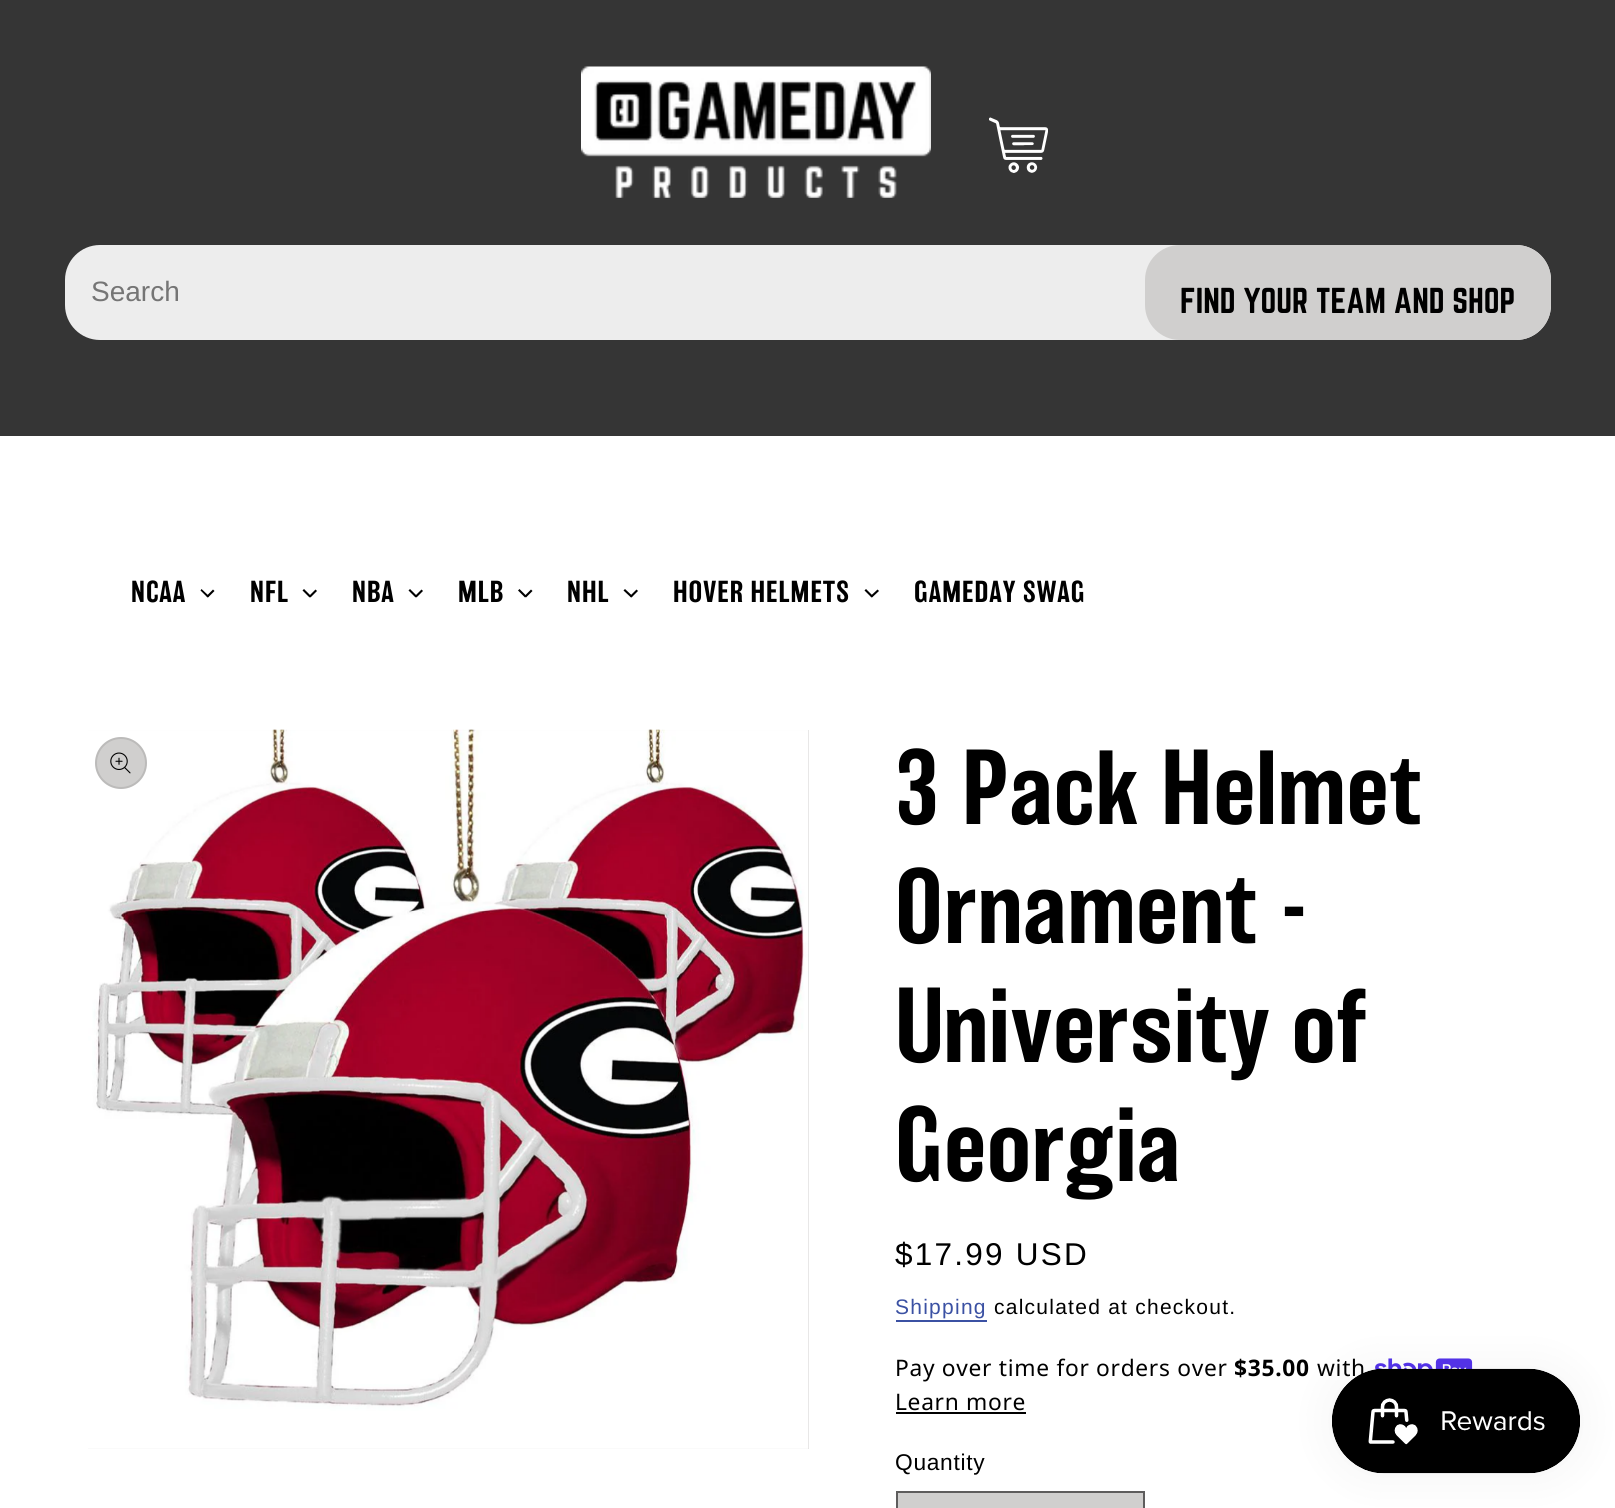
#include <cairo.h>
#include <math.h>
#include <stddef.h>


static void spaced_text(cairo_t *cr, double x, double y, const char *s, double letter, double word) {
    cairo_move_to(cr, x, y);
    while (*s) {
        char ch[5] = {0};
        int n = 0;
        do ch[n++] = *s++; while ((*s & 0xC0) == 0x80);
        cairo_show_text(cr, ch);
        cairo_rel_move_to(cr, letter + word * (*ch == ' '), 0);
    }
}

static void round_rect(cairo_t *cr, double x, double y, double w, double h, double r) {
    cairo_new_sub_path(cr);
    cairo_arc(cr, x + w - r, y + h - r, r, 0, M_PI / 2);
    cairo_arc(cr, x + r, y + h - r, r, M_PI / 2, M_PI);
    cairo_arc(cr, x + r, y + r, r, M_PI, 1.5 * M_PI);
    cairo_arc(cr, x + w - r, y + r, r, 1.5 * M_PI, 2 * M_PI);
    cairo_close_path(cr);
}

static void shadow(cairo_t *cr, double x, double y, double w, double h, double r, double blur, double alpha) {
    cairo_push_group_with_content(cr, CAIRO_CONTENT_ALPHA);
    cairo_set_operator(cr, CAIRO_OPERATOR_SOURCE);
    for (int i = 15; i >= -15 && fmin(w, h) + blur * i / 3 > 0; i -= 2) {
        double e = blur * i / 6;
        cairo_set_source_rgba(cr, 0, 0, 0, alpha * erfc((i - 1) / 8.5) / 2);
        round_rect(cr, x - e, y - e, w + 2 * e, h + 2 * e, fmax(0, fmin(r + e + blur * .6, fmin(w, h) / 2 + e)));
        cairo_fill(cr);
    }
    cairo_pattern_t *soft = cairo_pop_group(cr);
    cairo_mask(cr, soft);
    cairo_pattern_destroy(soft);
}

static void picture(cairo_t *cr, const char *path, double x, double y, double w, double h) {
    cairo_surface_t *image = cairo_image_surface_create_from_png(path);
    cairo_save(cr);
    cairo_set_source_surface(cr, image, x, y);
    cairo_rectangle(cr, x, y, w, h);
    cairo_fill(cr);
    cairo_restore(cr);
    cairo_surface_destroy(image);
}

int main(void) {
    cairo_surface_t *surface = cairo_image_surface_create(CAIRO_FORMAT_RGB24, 1615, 1508);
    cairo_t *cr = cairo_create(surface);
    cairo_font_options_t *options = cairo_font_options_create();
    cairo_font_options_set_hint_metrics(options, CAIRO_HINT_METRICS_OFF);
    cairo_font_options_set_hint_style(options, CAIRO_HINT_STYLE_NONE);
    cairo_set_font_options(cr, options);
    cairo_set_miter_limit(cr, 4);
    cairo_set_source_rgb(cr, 1, 1, 1);
    cairo_paint(cr);
    cairo_set_source_rgb(cr, 0.208, 0.208, 0.208);
    cairo_rectangle(cr, 0, 0, 1615, 436);
    cairo_fill(cr);
    picture(cr, "img1.png", 581, 66, 350, 132);
    picture(cr, "img2.png", 989, 117, 59, 56);
    cairo_set_source_rgb(cr, 0.929, 0.929, 0.929);
    round_rect(cr, 65, 245, 1486, 95, 35);
    cairo_fill(cr);
    cairo_select_font_face(cr, "Liberation Sans", CAIRO_FONT_SLANT_NORMAL, CAIRO_FONT_WEIGHT_NORMAL);
    cairo_set_font_size(cr, 28);
    cairo_set_source_rgb(cr, 0.459, 0.459, 0.459);
    cairo_move_to(cr, 91, 301);
    cairo_show_text(cr, "Search");
    cairo_set_source_rgb(cr, 0.816, 0.812, 0.808);
    round_rect(cr, 1145, 245, 406, 95, 35);
    cairo_fill(cr);
    cairo_select_font_face(cr, "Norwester", CAIRO_FONT_SLANT_NORMAL, CAIRO_FONT_WEIGHT_NORMAL);
    cairo_set_font_size(cr, 31.5);
    cairo_set_source_rgb(cr, 0, 0, 0);
    cairo_move_to(cr, 1180, 313);
    cairo_show_text(cr, "FIND YOUR TEAM AND SHOP");
    cairo_select_font_face(cr, "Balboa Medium", CAIRO_FONT_SLANT_NORMAL, CAIRO_FONT_WEIGHT_NORMAL);
    cairo_set_font_size(cr, 28);
    spaced_text(cr, 131, 602, "NCAA", 1, 0);
    cairo_new_path(cr);
    cairo_move_to(cr, 213, 589.5);
    cairo_line_to(cr, 214.5, 591);
    cairo_line_to(cr, 208, 597.5);
    cairo_line_to(cr, 206.5, 596);
    cairo_close_path(cr);
    cairo_fill(cr);
    cairo_new_path(cr);
    cairo_move_to(cr, 201.5, 589);
    cairo_line_to(cr, 209, 596);
    cairo_line_to(cr, 207.5, 597.5);
    cairo_line_to(cr, 200.5, 590.5);
    cairo_close_path(cr);
    cairo_fill(cr);
    spaced_text(cr, 250, 602, "NFL", 1, 0);
    cairo_new_path(cr);
    cairo_move_to(cr, 315.5, 589.5);
    cairo_line_to(cr, 317, 591);
    cairo_line_to(cr, 310.5, 597.5);
    cairo_line_to(cr, 309, 596);
    cairo_close_path(cr);
    cairo_fill(cr);
    cairo_new_path(cr);
    cairo_move_to(cr, 304, 589);
    cairo_line_to(cr, 311, 596);
    cairo_line_to(cr, 309.5, 597.5);
    cairo_line_to(cr, 302.5, 590.5);
    cairo_close_path(cr);
    cairo_fill(cr);
    spaced_text(cr, 352, 602, "NBA", 1, 0);
    cairo_new_path(cr);
    cairo_move_to(cr, 421.5, 589.5);
    cairo_line_to(cr, 423, 591);
    cairo_line_to(cr, 416.5, 597.5);
    cairo_line_to(cr, 415, 596);
    cairo_close_path(cr);
    cairo_fill(cr);
    cairo_new_path(cr);
    cairo_move_to(cr, 410, 589);
    cairo_line_to(cr, 417, 596);
    cairo_line_to(cr, 415.5, 597.5);
    cairo_line_to(cr, 408.5, 590.5);
    cairo_close_path(cr);
    cairo_fill(cr);
    spaced_text(cr, 458, 602, "MLB", 1, 0);
    cairo_new_path(cr);
    cairo_move_to(cr, 531, 589.5);
    cairo_line_to(cr, 532.5, 591);
    cairo_line_to(cr, 526, 597.5);
    cairo_line_to(cr, 524.5, 596);
    cairo_close_path(cr);
    cairo_fill(cr);
    cairo_new_path(cr);
    cairo_move_to(cr, 519.5, 589);
    cairo_line_to(cr, 526.5, 596);
    cairo_line_to(cr, 525, 597.5);
    cairo_line_to(cr, 518, 590.5);
    cairo_close_path(cr);
    cairo_fill(cr);
    spaced_text(cr, 567, 602, "NHL", 1, 0);
    cairo_new_path(cr);
    cairo_move_to(cr, 636.5, 589.5);
    cairo_line_to(cr, 638, 591);
    cairo_line_to(cr, 631.5, 597.5);
    cairo_line_to(cr, 630, 596);
    cairo_close_path(cr);
    cairo_fill(cr);
    cairo_new_path(cr);
    cairo_move_to(cr, 625, 589);
    cairo_line_to(cr, 632.5, 596);
    cairo_line_to(cr, 631, 597.5);
    cairo_line_to(cr, 623.5, 590.5);
    cairo_close_path(cr);
    cairo_fill(cr);
    spaced_text(cr, 673, 602, "HOVER HELMETS", 1, 0);
    cairo_new_path(cr);
    cairo_move_to(cr, 877.5, 589.5);
    cairo_line_to(cr, 879, 591);
    cairo_line_to(cr, 872, 597.5);
    cairo_line_to(cr, 870.5, 596);
    cairo_close_path(cr);
    cairo_fill(cr);
    cairo_new_path(cr);
    cairo_move_to(cr, 866, 589);
    cairo_line_to(cr, 873, 596);
    cairo_line_to(cr, 871.5, 597.5);
    cairo_line_to(cr, 864.5, 590.5);
    cairo_close_path(cr);
    cairo_fill(cr);
    spaced_text(cr, 914, 602, "GAMEDAY SWAG", 1, 0);
    cairo_set_source_rgb(cr, 0.816, 0.812, 0.808);
    cairo_rectangle(cr, 88, 730, 721, 719);
    cairo_fill(cr);
    picture(cr, "img3.png", 88, 729, 721, 720);
    cairo_arc(cr, 121, 763, 26, 0, 2 * M_PI);
    cairo_fill(cr);
    cairo_arc(cr, 121, 763, 25, 0, 2 * M_PI);
    cairo_set_source_rgba(cr, 0, 0, 0, 0.1);
    cairo_stroke(cr);
    picture(cr, "img4.png", 110, 752, 21, 22);
    cairo_set_font_size(cr, 98);
    cairo_set_source_rgb(cr, 0, 0, 0);
    spaced_text(cr, 895, 824, "3 Pack Helmet", 1.5, 0);
    spaced_text(cr, 895, 943, "Ornament -", 1.5, 0);
    spaced_text(cr, 895, 1062, "University of", 1.5, 0);
    spaced_text(cr, 895, 1181, "Georgia", 1.5, 0);
    cairo_select_font_face(cr, "Liberation Sans", CAIRO_FONT_SLANT_NORMAL, CAIRO_FONT_WEIGHT_NORMAL);
    cairo_set_font_size(cr, 31.5);
    spaced_text(cr, 895, 1265, "$17.99 USD", 2.25, 0);
    cairo_set_font_size(cr, 21);
    cairo_set_source_rgb(cr, 0.231, 0.318, 0.639);
    spaced_text(cr, 895, 1314, "Shipping", 1.25, 0);
    cairo_rectangle(cr, 896, 1320, 91, 2);
    cairo_fill(cr);
    cairo_set_source_rgb(cr, 0, 0, 0);
    spaced_text(cr, 994, 1314, "calculated at checkout.", 1.25, 0);
    cairo_select_font_face(cr, "Noto Sans", CAIRO_FONT_SLANT_NORMAL, CAIRO_FONT_WEIGHT_NORMAL);
    cairo_set_font_size(cr, 22.75);
    spaced_text(cr, 895, 1376, "Pay over time for orders over", 0.7, 0);
    cairo_select_font_face(cr, "Noto Sans", CAIRO_FONT_SLANT_NORMAL, CAIRO_FONT_WEIGHT_BOLD);
    spaced_text(cr, 1234, 1376, "$35.00", 0.7, 0);
    cairo_select_font_face(cr, "Noto Sans", CAIRO_FONT_SLANT_NORMAL, CAIRO_FONT_WEIGHT_NORMAL);
    spaced_text(cr, 1317, 1376, "with", 0.7, 0);
    picture(cr, "img5.png", 1375, 1358, 98, 12);
    spaced_text(cr, 895, 1410, "Learn more", 0.7, 0);
    cairo_rectangle(cr, 896, 1412, 130, 2);
    cairo_fill(cr);
    cairo_select_font_face(cr, "Liberation Sans", CAIRO_FONT_SLANT_NORMAL, CAIRO_FONT_WEIGHT_NORMAL);
    spaced_text(cr, 895, 1470, "Quantity", 0.7, 0);
    cairo_set_source_rgb(cr, 0.816, 0.812, 0.808);
    cairo_rectangle(cr, 897, 1492, 247, 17);
    cairo_fill_preserve(cr);
    cairo_set_source_rgb(cr, 0.369, 0.365, 0.365);
    cairo_stroke(cr);
    cairo_set_source_rgb(cr, 0, 0, 0);
    shadow(cr, 1332, 1369, 248, 105, 52.5, 22, 0.05);
    picture(cr, "img6.png", 1332, 1368, 248, 106);
    cairo_surface_write_to_png(surface, "page.png");
    cairo_font_options_destroy(options);
    cairo_destroy(cr);
    cairo_surface_destroy(surface);
    return 0;
}
